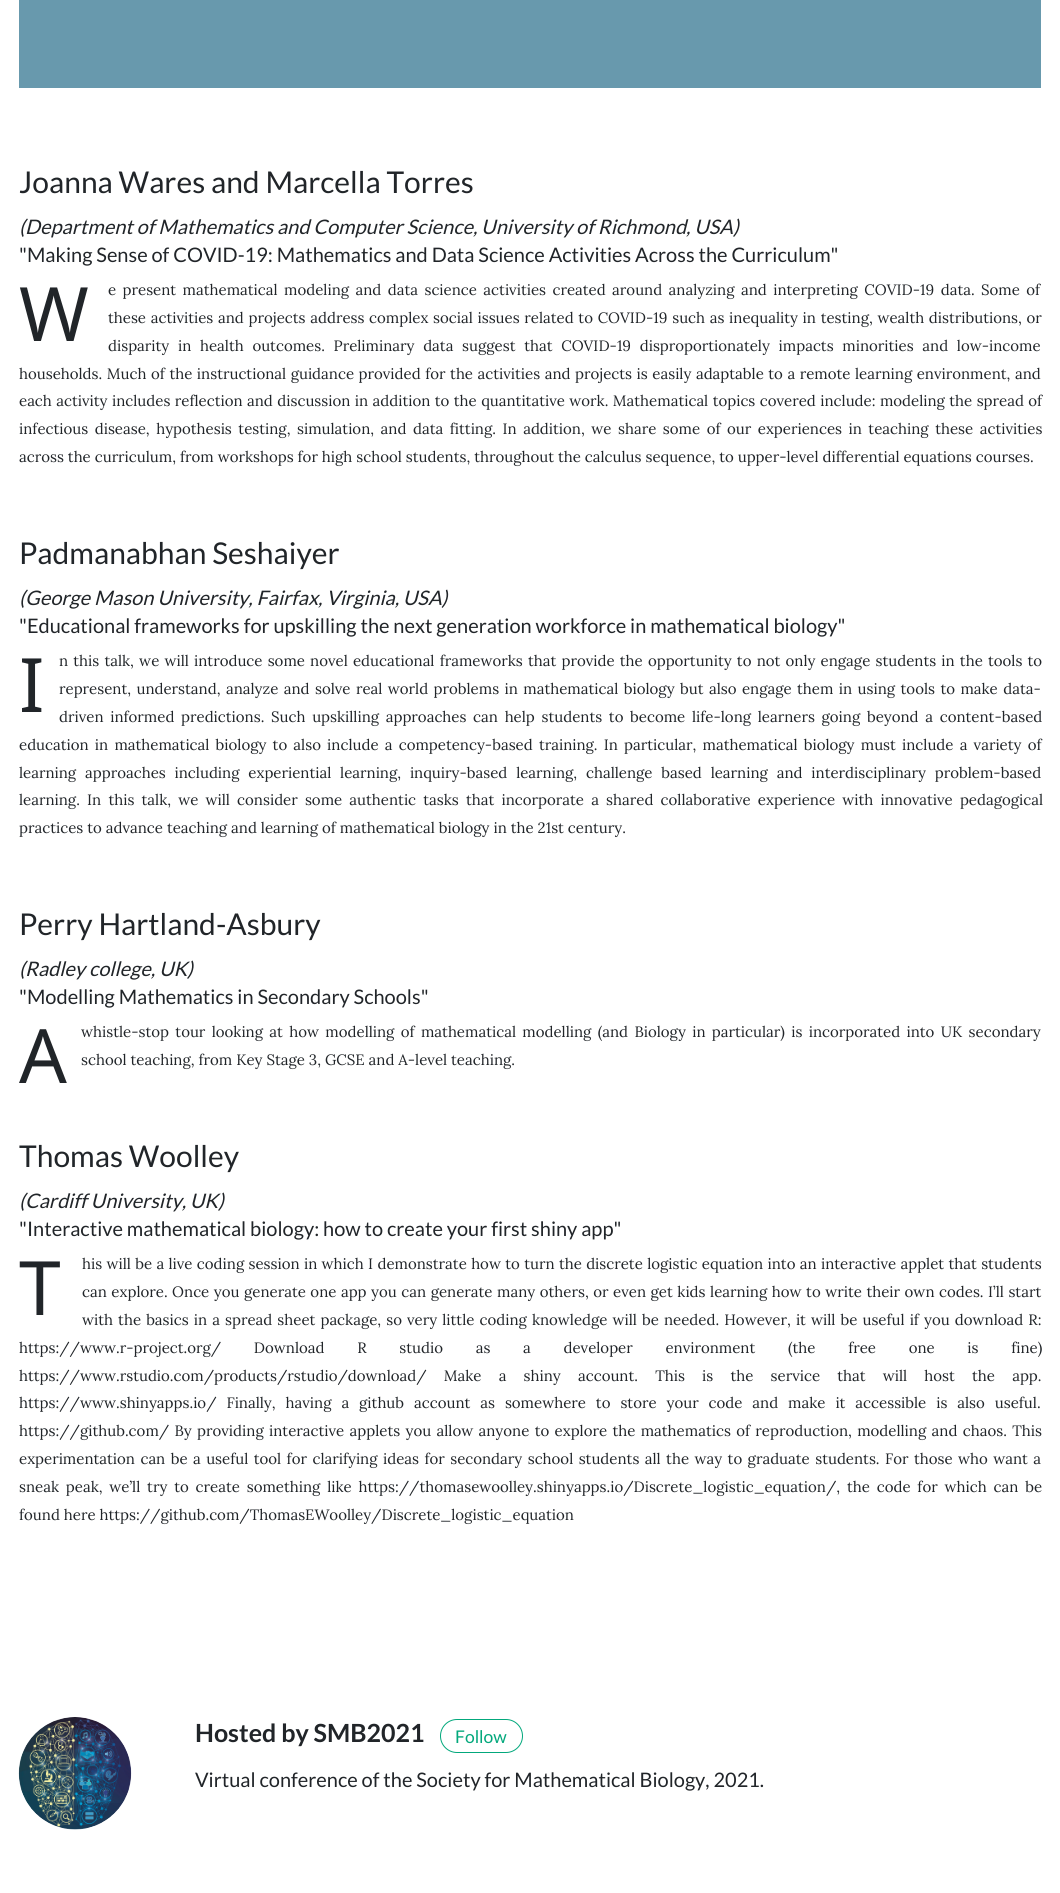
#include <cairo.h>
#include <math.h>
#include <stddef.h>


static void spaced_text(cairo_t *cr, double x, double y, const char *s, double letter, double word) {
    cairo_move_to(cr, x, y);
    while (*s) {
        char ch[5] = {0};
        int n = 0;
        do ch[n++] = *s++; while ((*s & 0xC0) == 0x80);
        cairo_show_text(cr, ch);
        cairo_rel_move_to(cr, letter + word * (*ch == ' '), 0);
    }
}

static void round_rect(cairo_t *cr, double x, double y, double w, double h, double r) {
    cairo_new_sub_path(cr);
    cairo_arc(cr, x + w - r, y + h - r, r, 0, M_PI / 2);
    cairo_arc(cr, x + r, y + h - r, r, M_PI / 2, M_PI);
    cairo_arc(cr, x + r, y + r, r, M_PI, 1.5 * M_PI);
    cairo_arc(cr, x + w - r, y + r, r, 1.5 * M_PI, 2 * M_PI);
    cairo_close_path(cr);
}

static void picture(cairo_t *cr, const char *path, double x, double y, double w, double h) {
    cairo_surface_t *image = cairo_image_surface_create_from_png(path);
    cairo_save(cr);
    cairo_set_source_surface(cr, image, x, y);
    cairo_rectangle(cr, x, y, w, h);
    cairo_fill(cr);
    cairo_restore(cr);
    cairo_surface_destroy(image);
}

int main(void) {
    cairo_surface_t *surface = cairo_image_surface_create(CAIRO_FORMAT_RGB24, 1060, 1893);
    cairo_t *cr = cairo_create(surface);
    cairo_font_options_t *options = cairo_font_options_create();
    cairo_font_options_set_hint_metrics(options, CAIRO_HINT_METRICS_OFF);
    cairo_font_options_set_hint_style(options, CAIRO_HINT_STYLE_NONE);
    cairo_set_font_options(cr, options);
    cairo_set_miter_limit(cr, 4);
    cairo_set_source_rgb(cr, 1, 1, 1);
    cairo_paint(cr);
    cairo_set_source_rgb(cr, 0.408, 0.6, 0.678);
    cairo_rectangle(cr, 19, 0, 1022, 88);
    cairo_fill(cr);
    cairo_select_font_face(cr, "Lato", CAIRO_FONT_SLANT_NORMAL, CAIRO_FONT_WEIGHT_NORMAL);
    cairo_set_font_size(cr, 30);
    cairo_set_source_rgb(cr, 0.129, 0.145, 0.161);
    cairo_move_to(cr, 19, 193);
    cairo_show_text(cr, "Joanna Wares and Marcella Torres");
    cairo_select_font_face(cr, "Lato", CAIRO_FONT_SLANT_ITALIC, CAIRO_FONT_WEIGHT_NORMAL);
    cairo_set_font_size(cr, 20);
    cairo_move_to(cr, 19, 234);
    cairo_show_text(cr, "(Department of Mathematics and Computer Science, University of Richmond, USA)");
    cairo_select_font_face(cr, "Lato", CAIRO_FONT_SLANT_NORMAL, CAIRO_FONT_WEIGHT_NORMAL);
    cairo_move_to(cr, 19, 262);
    cairo_show_text(cr, "\"Making Sense of COVID-19: Mathematics and Data Science Activities Across the Curriculum\"");
    cairo_select_font_face(cr, "Noto Sans", CAIRO_FONT_SLANT_NORMAL, CAIRO_FONT_WEIGHT_NORMAL);
    cairo_set_font_size(cr, 75);
    cairo_move_to(cr, 19, 341);
    cairo_show_text(cr, "W");
    cairo_select_font_face(cr, "Lora", CAIRO_FONT_SLANT_NORMAL, CAIRO_FONT_WEIGHT_NORMAL);
    cairo_set_font_size(cr, 15);
    spaced_text(cr, 108, 295, "e present mathematical modeling and data science activities created around analyzing and interpreting COVID-19 data. Some of", 0, 2.5);
    spaced_text(cr, 108, 323, "these activities and projects address complex social issues related to COVID-19 such as inequality in testing, wealth distributions, or", 0, 0.75);
    spaced_text(cr, 108, 351, "disparity in health outcomes. Preliminary data suggest that COVID-19 disproportionately impacts minorities and low-income", 0, 4.75);
    spaced_text(cr, 19, 379, "households. Much of the instructional guidance provided for the activities and projects is easily adaptable to a remote learning environment, and", 0, 0.6);
    spaced_text(cr, 19, 406, "each activity includes reflection and discussion in addition to the quantitative work. Mathematical topics covered include: modeling the spread of", 0, 0.5);
    spaced_text(cr, 19, 434, "infectious disease, hypothesis testing, simulation, and data fitting. In addition, we share some of our experiences in teaching these activities", 0, 2.6);
    cairo_move_to(cr, 19, 462);
    cairo_show_text(cr, "across the curriculum, from workshops for high school students, throughout the calculus sequence, to upper-level differential equations courses.");
    cairo_select_font_face(cr, "Lato", CAIRO_FONT_SLANT_NORMAL, CAIRO_FONT_WEIGHT_NORMAL);
    cairo_set_font_size(cr, 30);
    cairo_move_to(cr, 19, 564);
    cairo_show_text(cr, "Padmanabhan Seshaiyer");
    cairo_select_font_face(cr, "Lato", CAIRO_FONT_SLANT_ITALIC, CAIRO_FONT_WEIGHT_NORMAL);
    cairo_set_font_size(cr, 20);
    cairo_move_to(cr, 19, 605);
    cairo_show_text(cr, "(George Mason University, Fairfax, Virginia, USA)");
    cairo_select_font_face(cr, "Lato", CAIRO_FONT_SLANT_NORMAL, CAIRO_FONT_WEIGHT_NORMAL);
    cairo_move_to(cr, 19, 633);
    cairo_show_text(cr, "\"Educational frameworks for upskilling the next generation workforce in mathematical biology\"");
    cairo_select_font_face(cr, "Noto Sans", CAIRO_FONT_SLANT_NORMAL, CAIRO_FONT_WEIGHT_NORMAL);
    cairo_set_font_size(cr, 75);
    cairo_move_to(cr, 19, 712);
    cairo_show_text(cr, "I");
    cairo_select_font_face(cr, "Lora", CAIRO_FONT_SLANT_NORMAL, CAIRO_FONT_WEIGHT_NORMAL);
    cairo_set_font_size(cr, 15);
    spaced_text(cr, 59, 666, "n this talk, we will introduce some novel educational frameworks that provide the opportunity to not only engage students in the tools to", 0, 1.25);
    spaced_text(cr, 59, 694, "represent, understand, analyze and solve real world problems in mathematical biology but also engage them in using tools to make data-", 0, 1.5);
    spaced_text(cr, 59, 722, "driven informed predictions. Such upskilling approaches can help students to become life-long learners going beyond a content-based", 0, 2.75);
    spaced_text(cr, 19, 750, "education in mathematical biology to also include a competency-based training. In particular, mathematical biology must include a variety of", 0, 2.25);
    spaced_text(cr, 19, 778, "learning approaches including experiential learning, inquiry-based learning, challenge based learning and interdisciplinary problem-based", 0, 4.9);
    spaced_text(cr, 19, 805, "learning. In this talk, we will consider some authentic tasks that incorporate a shared collaborative experience with innovative pedagogical", 0, 3.25);
    cairo_move_to(cr, 19, 833);
    cairo_show_text(cr, "practices to advance teaching and learning of mathematical biology in the 21st century.");
    cairo_select_font_face(cr, "Lato", CAIRO_FONT_SLANT_NORMAL, CAIRO_FONT_WEIGHT_NORMAL);
    cairo_set_font_size(cr, 30);
    cairo_move_to(cr, 19, 935);
    cairo_show_text(cr, "Perry Hartland-Asbury");
    cairo_select_font_face(cr, "Lato", CAIRO_FONT_SLANT_ITALIC, CAIRO_FONT_WEIGHT_NORMAL);
    cairo_set_font_size(cr, 20);
    cairo_move_to(cr, 19, 976);
    cairo_show_text(cr, "(Radley college, UK)");
    cairo_select_font_face(cr, "Lato", CAIRO_FONT_SLANT_NORMAL, CAIRO_FONT_WEIGHT_NORMAL);
    cairo_move_to(cr, 19, 1004);
    cairo_show_text(cr, "\"Modelling Mathematics in Secondary Schools\"");
    cairo_select_font_face(cr, "Noto Sans", CAIRO_FONT_SLANT_NORMAL, CAIRO_FONT_WEIGHT_NORMAL);
    cairo_set_font_size(cr, 75);
    cairo_move_to(cr, 19, 1083);
    cairo_show_text(cr, "A");
    cairo_select_font_face(cr, "Lora", CAIRO_FONT_SLANT_NORMAL, CAIRO_FONT_WEIGHT_NORMAL);
    cairo_set_font_size(cr, 15);
    spaced_text(cr, 81, 1037, "whistle-stop tour looking at how modelling of mathematical modelling (and Biology in particular) is incorporated into UK secondary", 0, 2.4);
    cairo_move_to(cr, 81, 1065);
    cairo_show_text(cr, "school teaching, from Key Stage 3, GCSE and A-level teaching.");
    cairo_select_font_face(cr, "Lato", CAIRO_FONT_SLANT_NORMAL, CAIRO_FONT_WEIGHT_NORMAL);
    cairo_set_font_size(cr, 30);
    cairo_move_to(cr, 19, 1167);
    cairo_show_text(cr, "Thomas Woolley");
    cairo_select_font_face(cr, "Lato", CAIRO_FONT_SLANT_ITALIC, CAIRO_FONT_WEIGHT_NORMAL);
    cairo_set_font_size(cr, 20);
    cairo_move_to(cr, 19, 1208);
    cairo_show_text(cr, "(Cardiff University, UK)");
    cairo_select_font_face(cr, "Lato", CAIRO_FONT_SLANT_NORMAL, CAIRO_FONT_WEIGHT_NORMAL);
    cairo_move_to(cr, 19, 1236);
    cairo_show_text(cr, "\"Interactive mathematical biology: how to create your first shiny app\"");
    cairo_select_font_face(cr, "Noto Sans", CAIRO_FONT_SLANT_NORMAL, CAIRO_FONT_WEIGHT_NORMAL);
    cairo_set_font_size(cr, 75);
    cairo_move_to(cr, 19, 1315);
    cairo_show_text(cr, "T");
    cairo_select_font_face(cr, "Lora", CAIRO_FONT_SLANT_NORMAL, CAIRO_FONT_WEIGHT_NORMAL);
    cairo_set_font_size(cr, 15);
    spaced_text(cr, 82, 1269, "his will be a live coding session in which I demonstrate how to turn the discrete logistic equation into an interactive applet that students", 0, 0.4);
    spaced_text(cr, 82, 1297, "can explore. Once you generate one app you can generate many others, or even get kids learning how to write their own codes. I’ll start", 0, 0.6);
    spaced_text(cr, 82, 1325, "with the basics in a spread sheet package, so very little coding knowledge will be needed. However, it will be useful if you download R:", 0, 1.15);
    spaced_text(cr, 19, 1353, "https://www.r-project.org/ Download R studio as a developer environment (the free one is fine)", 0, 28.75);
    spaced_text(cr, 19, 1381, "https://www.rstudio.com/products/rstudio/download/ Make a shiny account. This is the service that will host the app.", 0, 13.25);
    spaced_text(cr, 19, 1408, "https://www.shinyapps.io/ Finally, having a github account as somewhere to store your code and make it accessible is also useful.", 0, 6);
    spaced_text(cr, 19, 1436, "https://github.com/ By providing interactive applets you allow anyone to explore the mathematics of reproduction, modelling and chaos. This", 0, 1.4);
    spaced_text(cr, 19, 1464, "experimentation can be a useful tool for clarifying ideas for secondary school students all the way to graduate students. For those who want a", 0, 1.5);
    spaced_text(cr, 19, 1492, "sneak peak, we’ll try to create something like https://thomasewoolley.shinyapps.io/Discrete_logistic_equation/, the code for which can be", 0, 2.9);
    cairo_move_to(cr, 19, 1520);
    cairo_show_text(cr, "found here https://github.com/ThomasEWoolley/Discrete_logistic_equation");
    picture(cr, "img1.png", 18, 1717, 114, 113);
    cairo_select_font_face(cr, "Lato", CAIRO_FONT_SLANT_NORMAL, CAIRO_FONT_WEIGHT_BOLD);
    cairo_set_font_size(cr, 25);
    cairo_move_to(cr, 195, 1742);
    cairo_show_text(cr, "Hosted by SMB2021");
    round_rect(cr, 440.5, 1719.5, 82, 33, 16.5);
    cairo_set_source_rgb(cr, 0.012, 0.659, 0.486);
    cairo_set_line_width(cr, 1);
    cairo_stroke(cr);
    cairo_select_font_face(cr, "Lato", CAIRO_FONT_SLANT_NORMAL, CAIRO_FONT_WEIGHT_NORMAL);
    cairo_set_font_size(cr, 17.5);
    cairo_move_to(cr, 455, 1743);
    cairo_show_text(cr, "Follow");
    cairo_set_font_size(cr, 20);
    cairo_set_source_rgb(cr, 0.129, 0.145, 0.161);
    cairo_move_to(cr, 195, 1787);
    cairo_show_text(cr, "Virtual conference of the Society for Mathematical Biology, 2021.");
    cairo_surface_write_to_png(surface, "page.png");
    cairo_font_options_destroy(options);
    cairo_destroy(cr);
    cairo_surface_destroy(surface);
    return 0;
}
